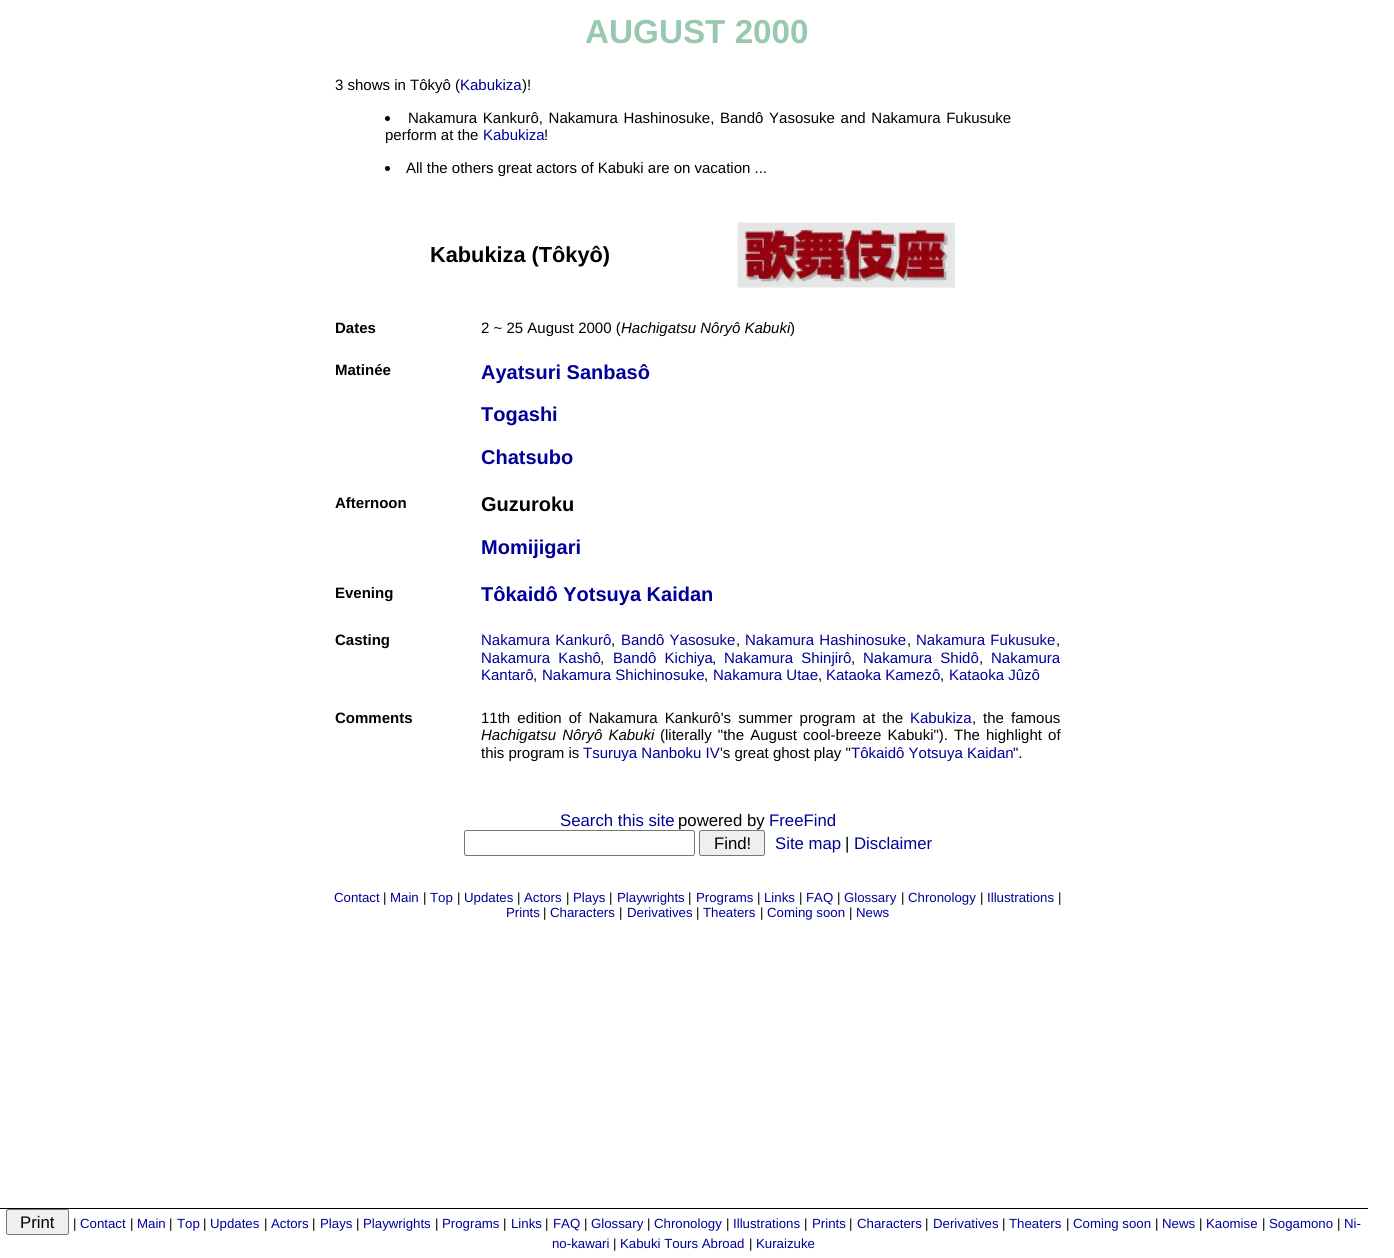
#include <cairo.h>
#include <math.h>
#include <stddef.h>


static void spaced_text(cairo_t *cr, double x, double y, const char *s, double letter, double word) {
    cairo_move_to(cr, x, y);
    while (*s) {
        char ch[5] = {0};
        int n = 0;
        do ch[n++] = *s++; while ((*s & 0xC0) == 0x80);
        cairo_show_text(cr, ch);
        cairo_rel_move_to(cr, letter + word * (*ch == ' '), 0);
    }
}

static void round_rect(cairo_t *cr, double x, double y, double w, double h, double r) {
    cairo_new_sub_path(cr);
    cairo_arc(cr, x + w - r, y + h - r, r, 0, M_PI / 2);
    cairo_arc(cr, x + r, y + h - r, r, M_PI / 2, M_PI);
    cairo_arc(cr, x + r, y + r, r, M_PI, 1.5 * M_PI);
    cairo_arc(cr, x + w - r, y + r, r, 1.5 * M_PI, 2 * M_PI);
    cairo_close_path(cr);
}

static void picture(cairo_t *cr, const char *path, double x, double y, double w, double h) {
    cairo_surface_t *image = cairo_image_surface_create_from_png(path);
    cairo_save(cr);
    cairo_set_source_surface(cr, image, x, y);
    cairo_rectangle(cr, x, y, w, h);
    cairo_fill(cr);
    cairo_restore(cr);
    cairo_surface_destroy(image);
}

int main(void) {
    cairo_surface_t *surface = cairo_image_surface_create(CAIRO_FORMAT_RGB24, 1394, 1258);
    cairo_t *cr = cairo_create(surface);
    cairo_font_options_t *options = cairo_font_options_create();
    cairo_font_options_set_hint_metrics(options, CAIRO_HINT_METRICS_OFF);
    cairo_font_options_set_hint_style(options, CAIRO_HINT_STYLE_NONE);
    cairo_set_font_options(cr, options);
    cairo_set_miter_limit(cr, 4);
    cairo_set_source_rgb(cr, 1, 1, 1);
    cairo_paint(cr);
    cairo_select_font_face(cr, "Liberation Sans", CAIRO_FONT_SLANT_NORMAL, CAIRO_FONT_WEIGHT_BOLD);
    cairo_set_font_size(cr, 33.25);
    cairo_set_source_rgb(cr, 0.596, 0.788, 0.69);
    cairo_move_to(cr, 585, 43);
    cairo_show_text(cr, "AUGUST 2000");
    cairo_select_font_face(cr, "Liberation Sans", CAIRO_FONT_SLANT_NORMAL, CAIRO_FONT_WEIGHT_NORMAL);
    cairo_set_font_size(cr, 15);
    cairo_set_source_rgb(cr, 0, 0, 0);
    cairo_move_to(cr, 335, 90);
    cairo_show_text(cr, "3 shows in Tôkyô (");
    cairo_set_source_rgb(cr, 0, 0, 0.6);
    cairo_move_to(cr, 460, 90);
    cairo_show_text(cr, "Kabukiza");
    cairo_set_source_rgb(cr, 0, 0, 0);
    cairo_move_to(cr, 522, 90);
    cairo_show_text(cr, ")!");
    cairo_new_path(cr);
    cairo_arc(cr, 387.5, 118.5, 2.5, 0, 2 * M_PI);
    cairo_fill(cr);
    spaced_text(cr, 408, 123, "Nakamura Kankurô, Nakamura Hashinosuke, Bandô Yasosuke and Nakamura Fukusuke", 0, 1.5);
    cairo_move_to(cr, 385, 140);
    cairo_show_text(cr, "perform at the");
    cairo_set_source_rgb(cr, 0, 0, 0.6);
    cairo_move_to(cr, 483, 140);
    cairo_show_text(cr, "Kabukiza");
    cairo_set_source_rgb(cr, 0, 0, 0);
    cairo_move_to(cr, 544, 140);
    cairo_show_text(cr, "!");
    cairo_new_path(cr);
    cairo_arc(cr, 387.5, 168.5, 2.5, 0, 2 * M_PI);
    cairo_fill(cr);
    cairo_move_to(cr, 406, 173);
    cairo_show_text(cr, "All the others great actors of Kabuki are on vacation ...");
    cairo_select_font_face(cr, "Liberation Sans", CAIRO_FONT_SLANT_NORMAL, CAIRO_FONT_WEIGHT_BOLD);
    cairo_set_font_size(cr, 21.75);
    cairo_move_to(cr, 430, 262);
    cairo_show_text(cr, "Kabukiza (Tôkyô)");
    picture(cr, "img1.png", 737, 222, 218, 66);
    cairo_set_font_size(cr, 15);
    cairo_move_to(cr, 335, 333);
    cairo_show_text(cr, "Dates");
    cairo_select_font_face(cr, "Liberation Sans", CAIRO_FONT_SLANT_NORMAL, CAIRO_FONT_WEIGHT_NORMAL);
    cairo_move_to(cr, 481, 333);
    cairo_show_text(cr, "2 ~ 25 August 2000 (");
    cairo_select_font_face(cr, "Liberation Sans", CAIRO_FONT_SLANT_ITALIC, CAIRO_FONT_WEIGHT_NORMAL);
    cairo_move_to(cr, 621, 333);
    cairo_show_text(cr, "Hachigatsu Nôryô Kabuki");
    cairo_select_font_face(cr, "Liberation Sans", CAIRO_FONT_SLANT_NORMAL, CAIRO_FONT_WEIGHT_NORMAL);
    cairo_move_to(cr, 790, 333);
    cairo_show_text(cr, ")");
    cairo_select_font_face(cr, "Liberation Sans", CAIRO_FONT_SLANT_NORMAL, CAIRO_FONT_WEIGHT_BOLD);
    cairo_move_to(cr, 335, 375);
    cairo_show_text(cr, "Matinée");
    cairo_set_font_size(cr, 20);
    cairo_set_source_rgb(cr, 0, 0, 0.6);
    cairo_move_to(cr, 481, 379);
    cairo_show_text(cr, "Ayatsuri Sanbasô");
    cairo_move_to(cr, 481, 421);
    cairo_show_text(cr, "Togashi");
    cairo_move_to(cr, 481, 464);
    cairo_show_text(cr, "Chatsubo");
    cairo_set_font_size(cr, 15);
    cairo_set_source_rgb(cr, 0, 0, 0);
    cairo_move_to(cr, 335, 508);
    cairo_show_text(cr, "Afternoon");
    cairo_set_font_size(cr, 20);
    cairo_move_to(cr, 481, 511);
    cairo_show_text(cr, "Guzuroku");
    cairo_set_source_rgb(cr, 0, 0, 0.6);
    cairo_move_to(cr, 481, 554);
    cairo_show_text(cr, "Momijigari");
    cairo_set_font_size(cr, 15);
    cairo_set_source_rgb(cr, 0, 0, 0);
    cairo_move_to(cr, 335, 598);
    cairo_show_text(cr, "Evening");
    cairo_set_font_size(cr, 20);
    cairo_set_source_rgb(cr, 0, 0, 0.6);
    cairo_move_to(cr, 481, 601);
    cairo_show_text(cr, "Tôkaidô Yotsuya Kaidan");
    cairo_set_font_size(cr, 15);
    cairo_set_source_rgb(cr, 0, 0, 0);
    cairo_move_to(cr, 335, 645);
    cairo_show_text(cr, "Casting");
    cairo_select_font_face(cr, "Liberation Sans", CAIRO_FONT_SLANT_NORMAL, CAIRO_FONT_WEIGHT_NORMAL);
    cairo_set_source_rgb(cr, 0, 0, 0.6);
    spaced_text(cr, 481, 645, "Nakamura Kankurô", 0, 1);
    cairo_set_source_rgb(cr, 0, 0, 0);
    cairo_move_to(cr, 611, 645);
    cairo_show_text(cr, ",");
    cairo_set_source_rgb(cr, 0, 0, 0.6);
    spaced_text(cr, 621, 645, "Bandô Yasosuke", 0, 1);
    cairo_set_source_rgb(cr, 0, 0, 0);
    cairo_move_to(cr, 736, 645);
    cairo_show_text(cr, ",");
    cairo_set_source_rgb(cr, 0, 0, 0.6);
    spaced_text(cr, 745, 645, "Nakamura Hashinosuke", 0, 1);
    cairo_set_source_rgb(cr, 0, 0, 0);
    cairo_move_to(cr, 907, 645);
    cairo_show_text(cr, ",");
    cairo_set_source_rgb(cr, 0, 0, 0.6);
    spaced_text(cr, 916, 645, "Nakamura Fukusuke", 0, 1);
    cairo_set_source_rgb(cr, 0, 0, 0);
    cairo_move_to(cr, 1056, 645);
    cairo_show_text(cr, ",");
    cairo_set_source_rgb(cr, 0, 0, 0.6);
    spaced_text(cr, 481, 663, "Nakamura Kashô", 0, 4);
    cairo_set_source_rgb(cr, 0, 0, 0);
    cairo_move_to(cr, 600, 663);
    cairo_show_text(cr, ",");
    cairo_set_source_rgb(cr, 0, 0, 0.6);
    spaced_text(cr, 613, 663, "Bandô Kichiya", 0, 4);
    cairo_set_source_rgb(cr, 0, 0, 0);
    cairo_move_to(cr, 712, 663);
    cairo_show_text(cr, ",");
    cairo_set_source_rgb(cr, 0, 0, 0.6);
    spaced_text(cr, 724, 663, "Nakamura Shinjirô", 0, 4);
    cairo_set_source_rgb(cr, 0, 0, 0);
    cairo_move_to(cr, 851, 663);
    cairo_show_text(cr, ",");
    cairo_set_source_rgb(cr, 0, 0, 0.6);
    spaced_text(cr, 863, 663, "Nakamura Shidô", 0, 4);
    cairo_set_source_rgb(cr, 0, 0, 0);
    cairo_move_to(cr, 979, 663);
    cairo_show_text(cr, ",");
    cairo_set_source_rgb(cr, 0, 0, 0.6);
    cairo_move_to(cr, 991, 663);
    cairo_show_text(cr, "Nakamura");
    cairo_move_to(cr, 481, 680);
    cairo_show_text(cr, "Kantarô");
    cairo_set_source_rgb(cr, 0, 0, 0);
    cairo_move_to(cr, 533, 680);
    cairo_show_text(cr, ",");
    cairo_set_source_rgb(cr, 0, 0, 0.6);
    cairo_move_to(cr, 542, 680);
    cairo_show_text(cr, "Nakamura Shichinosuke");
    cairo_set_source_rgb(cr, 0, 0, 0);
    cairo_move_to(cr, 704, 680);
    cairo_show_text(cr, ",");
    cairo_set_source_rgb(cr, 0, 0, 0.6);
    cairo_move_to(cr, 713, 680);
    cairo_show_text(cr, "Nakamura Utae");
    cairo_set_source_rgb(cr, 0, 0, 0);
    cairo_move_to(cr, 818, 680);
    cairo_show_text(cr, ",");
    cairo_set_source_rgb(cr, 0, 0, 0.6);
    cairo_move_to(cr, 826, 680);
    cairo_show_text(cr, "Kataoka Kamezô");
    cairo_set_source_rgb(cr, 0, 0, 0);
    cairo_move_to(cr, 940, 680);
    cairo_show_text(cr, ",");
    cairo_set_source_rgb(cr, 0, 0, 0.6);
    cairo_move_to(cr, 949, 680);
    cairo_show_text(cr, "Kataoka Jûzô");
    cairo_select_font_face(cr, "Liberation Sans", CAIRO_FONT_SLANT_NORMAL, CAIRO_FONT_WEIGHT_BOLD);
    cairo_set_source_rgb(cr, 0, 0, 0);
    cairo_move_to(cr, 335, 723);
    cairo_show_text(cr, "Comments");
    cairo_select_font_face(cr, "Liberation Sans", CAIRO_FONT_SLANT_NORMAL, CAIRO_FONT_WEIGHT_NORMAL);
    spaced_text(cr, 481, 723, "11th edition of Nakamura Kankurô's summer program at the", 0, 3);
    cairo_set_source_rgb(cr, 0, 0, 0.6);
    cairo_move_to(cr, 910, 723);
    cairo_show_text(cr, "Kabukiza");
    cairo_set_source_rgb(cr, 0, 0, 0);
    cairo_move_to(cr, 972, 723);
    cairo_show_text(cr, ",");
    spaced_text(cr, 983, 723, "the famous", 0, 3);
    cairo_select_font_face(cr, "Liberation Sans", CAIRO_FONT_SLANT_ITALIC, CAIRO_FONT_WEIGHT_NORMAL);
    spaced_text(cr, 481, 740, "Hachigatsu Nôryô Kabuki", 0, 2);
    cairo_select_font_face(cr, "Liberation Sans", CAIRO_FONT_SLANT_NORMAL, CAIRO_FONT_WEIGHT_NORMAL);
    spaced_text(cr, 660, 740, "(literally \"the August cool-breeze Kabuki\").", 0, 2);
    spaced_text(cr, 954, 740, "The highlight of", 0, 2);
    cairo_move_to(cr, 481, 758);
    cairo_show_text(cr, "this program is");
    cairo_set_source_rgb(cr, 0, 0, 0.6);
    cairo_move_to(cr, 583, 758);
    cairo_show_text(cr, "Tsuruya Nanboku IV");
    cairo_set_source_rgb(cr, 0, 0, 0);
    cairo_move_to(cr, 720, 758);
    cairo_show_text(cr, "'s great ghost play \"");
    cairo_set_source_rgb(cr, 0, 0, 0.6);
    cairo_move_to(cr, 851, 758);
    cairo_show_text(cr, "Tôkaidô Yotsuya Kaidan");
    cairo_set_source_rgb(cr, 0, 0, 0);
    cairo_move_to(cr, 1013, 758);
    cairo_show_text(cr, "\".");
    cairo_set_font_size(cr, 16.75);
    cairo_set_source_rgb(cr, 0, 0, 0.6);
    cairo_move_to(cr, 560, 826);
    cairo_show_text(cr, "Search this site");
    cairo_set_source_rgb(cr, 0, 0, 0);
    cairo_move_to(cr, 678, 826);
    cairo_show_text(cr, "powered by");
    cairo_set_source_rgb(cr, 0, 0, 0.6);
    cairo_move_to(cr, 769, 826);
    cairo_show_text(cr, "FreeFind");
    round_rect(cr, 464.5, 830.5, 230, 25, 2);
    cairo_set_source_rgb(cr, 0.463, 0.463, 0.463);
    cairo_set_line_width(cr, 1);
    cairo_stroke(cr);
    cairo_set_source_rgb(cr, 0.937, 0.937, 0.937);
    round_rect(cr, 699.5, 830.5, 65, 25, 2);
    cairo_fill_preserve(cr);
    cairo_set_source_rgb(cr, 0.463, 0.463, 0.463);
    cairo_stroke(cr);
    cairo_set_source_rgb(cr, 0, 0, 0);
    cairo_move_to(cr, 714, 849);
    cairo_show_text(cr, "Find!");
    cairo_set_source_rgb(cr, 0, 0, 0.6);
    cairo_move_to(cr, 775, 849);
    cairo_show_text(cr, "Site map");
    cairo_set_source_rgb(cr, 0, 0, 0);
    cairo_move_to(cr, 845, 849);
    cairo_show_text(cr, "|");
    cairo_set_source_rgb(cr, 0, 0, 0.6);
    cairo_move_to(cr, 854, 849);
    cairo_show_text(cr, "Disclaimer");
    cairo_set_font_size(cr, 13.25);
    cairo_move_to(cr, 334, 902);
    cairo_show_text(cr, "Contact");
    cairo_set_source_rgb(cr, 0, 0, 0);
    cairo_move_to(cr, 383, 902);
    cairo_show_text(cr, "|");
    cairo_set_source_rgb(cr, 0, 0, 0.6);
    cairo_move_to(cr, 390, 902);
    cairo_show_text(cr, "Main");
    cairo_set_source_rgb(cr, 0, 0, 0);
    cairo_move_to(cr, 423, 902);
    cairo_show_text(cr, "|");
    cairo_set_source_rgb(cr, 0, 0, 0.6);
    cairo_move_to(cr, 430, 902);
    cairo_show_text(cr, "Top");
    cairo_set_source_rgb(cr, 0, 0, 0);
    cairo_move_to(cr, 457, 902);
    cairo_show_text(cr, "|");
    cairo_set_source_rgb(cr, 0, 0, 0.6);
    cairo_move_to(cr, 464, 902);
    cairo_show_text(cr, "Updates");
    cairo_set_source_rgb(cr, 0, 0, 0);
    cairo_move_to(cr, 517, 902);
    cairo_show_text(cr, "|");
    cairo_set_source_rgb(cr, 0, 0, 0.6);
    cairo_move_to(cr, 524, 902);
    cairo_show_text(cr, "Actors");
    cairo_set_source_rgb(cr, 0, 0, 0);
    cairo_move_to(cr, 566, 902);
    cairo_show_text(cr, "|");
    cairo_set_source_rgb(cr, 0, 0, 0.6);
    cairo_move_to(cr, 573, 902);
    cairo_show_text(cr, "Plays");
    cairo_set_source_rgb(cr, 0, 0, 0);
    cairo_move_to(cr, 609, 902);
    cairo_show_text(cr, "|");
    cairo_set_source_rgb(cr, 0, 0, 0.6);
    cairo_move_to(cr, 617, 902);
    cairo_show_text(cr, "Playwrights");
    cairo_set_source_rgb(cr, 0, 0, 0);
    cairo_move_to(cr, 688, 902);
    cairo_show_text(cr, "|");
    cairo_set_source_rgb(cr, 0, 0, 0.6);
    cairo_move_to(cr, 696, 902);
    cairo_show_text(cr, "Programs");
    cairo_set_source_rgb(cr, 0, 0, 0);
    cairo_move_to(cr, 757, 902);
    cairo_show_text(cr, "|");
    cairo_set_source_rgb(cr, 0, 0, 0.6);
    cairo_move_to(cr, 764, 902);
    cairo_show_text(cr, "Links");
    cairo_set_source_rgb(cr, 0, 0, 0);
    cairo_move_to(cr, 799, 902);
    cairo_show_text(cr, "|");
    cairo_set_source_rgb(cr, 0, 0, 0.6);
    cairo_move_to(cr, 806, 902);
    cairo_show_text(cr, "FAQ");
    cairo_set_source_rgb(cr, 0, 0, 0);
    cairo_move_to(cr, 837, 902);
    cairo_show_text(cr, "|");
    cairo_set_source_rgb(cr, 0, 0, 0.6);
    cairo_move_to(cr, 844, 902);
    cairo_show_text(cr, "Glossary");
    cairo_set_source_rgb(cr, 0, 0, 0);
    cairo_move_to(cr, 901, 902);
    cairo_show_text(cr, "|");
    cairo_set_source_rgb(cr, 0, 0, 0.6);
    cairo_move_to(cr, 908, 902);
    cairo_show_text(cr, "Chronology");
    cairo_set_source_rgb(cr, 0, 0, 0);
    cairo_move_to(cr, 980, 902);
    cairo_show_text(cr, "|");
    cairo_set_source_rgb(cr, 0, 0, 0.6);
    cairo_move_to(cr, 987, 902);
    cairo_show_text(cr, "Illustrations");
    cairo_set_source_rgb(cr, 0, 0, 0);
    cairo_move_to(cr, 1058, 902);
    cairo_show_text(cr, "|");
    cairo_set_source_rgb(cr, 0, 0, 0.6);
    cairo_move_to(cr, 506, 917);
    cairo_show_text(cr, "Prints");
    cairo_set_source_rgb(cr, 0, 0, 0);
    cairo_move_to(cr, 543, 917);
    cairo_show_text(cr, "|");
    cairo_set_source_rgb(cr, 0, 0, 0.6);
    cairo_move_to(cr, 550, 917);
    cairo_show_text(cr, "Characters");
    cairo_set_source_rgb(cr, 0, 0, 0);
    cairo_move_to(cr, 619, 917);
    cairo_show_text(cr, "|");
    cairo_set_source_rgb(cr, 0, 0, 0.6);
    cairo_move_to(cr, 627, 917);
    cairo_show_text(cr, "Derivatives");
    cairo_set_source_rgb(cr, 0, 0, 0);
    cairo_move_to(cr, 696, 917);
    cairo_show_text(cr, "|");
    cairo_set_source_rgb(cr, 0, 0, 0.6);
    cairo_move_to(cr, 703, 917);
    cairo_show_text(cr, "Theaters");
    cairo_set_source_rgb(cr, 0, 0, 0);
    cairo_move_to(cr, 760, 917);
    cairo_show_text(cr, "|");
    cairo_set_source_rgb(cr, 0, 0, 0.6);
    cairo_move_to(cr, 767, 917);
    cairo_show_text(cr, "Coming soon");
    cairo_set_source_rgb(cr, 0, 0, 0);
    cairo_move_to(cr, 849, 917);
    cairo_show_text(cr, "|");
    cairo_set_source_rgb(cr, 0, 0, 0.6);
    cairo_move_to(cr, 856, 917);
    cairo_show_text(cr, "News");
    cairo_set_source_rgb(cr, 0, 0, 0);
    cairo_rectangle(cr, 0, 1208, 1368, 1);
    cairo_fill(cr);
    cairo_set_source_rgb(cr, 0.937, 0.937, 0.937);
    round_rect(cr, 6.5, 1209.5, 62, 25, 2);
    cairo_fill_preserve(cr);
    cairo_set_source_rgb(cr, 0.463, 0.463, 0.463);
    cairo_stroke(cr);
    cairo_set_font_size(cr, 16.75);
    cairo_set_source_rgb(cr, 0, 0, 0);
    cairo_move_to(cr, 20, 1228);
    cairo_show_text(cr, "Print");
    cairo_set_font_size(cr, 13.25);
    cairo_move_to(cr, 73, 1228);
    cairo_show_text(cr, "|");
    cairo_set_source_rgb(cr, 0, 0, 0.6);
    cairo_move_to(cr, 80, 1228);
    cairo_show_text(cr, "Contact");
    cairo_set_source_rgb(cr, 0, 0, 0);
    cairo_move_to(cr, 130, 1228);
    cairo_show_text(cr, "|");
    cairo_set_source_rgb(cr, 0, 0, 0.6);
    cairo_move_to(cr, 137, 1228);
    cairo_show_text(cr, "Main");
    cairo_set_source_rgb(cr, 0, 0, 0);
    cairo_move_to(cr, 169, 1228);
    cairo_show_text(cr, "|");
    cairo_set_source_rgb(cr, 0, 0, 0.6);
    cairo_move_to(cr, 177, 1228);
    cairo_show_text(cr, "Top");
    cairo_set_source_rgb(cr, 0, 0, 0);
    cairo_move_to(cr, 203, 1228);
    cairo_show_text(cr, "|");
    cairo_set_source_rgb(cr, 0, 0, 0.6);
    cairo_move_to(cr, 210, 1228);
    cairo_show_text(cr, "Updates");
    cairo_set_source_rgb(cr, 0, 0, 0);
    cairo_move_to(cr, 264, 1228);
    cairo_show_text(cr, "|");
    cairo_set_source_rgb(cr, 0, 0, 0.6);
    cairo_move_to(cr, 271, 1228);
    cairo_show_text(cr, "Actors");
    cairo_set_source_rgb(cr, 0, 0, 0);
    cairo_move_to(cr, 312, 1228);
    cairo_show_text(cr, "|");
    cairo_set_source_rgb(cr, 0, 0, 0.6);
    cairo_move_to(cr, 320, 1228);
    cairo_show_text(cr, "Plays");
    cairo_set_source_rgb(cr, 0, 0, 0);
    cairo_move_to(cr, 356, 1228);
    cairo_show_text(cr, "|");
    cairo_set_source_rgb(cr, 0, 0, 0.6);
    cairo_move_to(cr, 363, 1228);
    cairo_show_text(cr, "Playwrights");
    cairo_set_source_rgb(cr, 0, 0, 0);
    cairo_move_to(cr, 435, 1228);
    cairo_show_text(cr, "|");
    cairo_set_source_rgb(cr, 0, 0, 0.6);
    cairo_move_to(cr, 442, 1228);
    cairo_show_text(cr, "Programs");
    cairo_set_source_rgb(cr, 0, 0, 0);
    cairo_move_to(cr, 503, 1228);
    cairo_show_text(cr, "|");
    cairo_set_source_rgb(cr, 0, 0, 0.6);
    cairo_move_to(cr, 511, 1228);
    cairo_show_text(cr, "Links");
    cairo_set_source_rgb(cr, 0, 0, 0);
    cairo_move_to(cr, 545, 1228);
    cairo_show_text(cr, "|");
    cairo_set_source_rgb(cr, 0, 0, 0.6);
    cairo_move_to(cr, 553, 1228);
    cairo_show_text(cr, "FAQ");
    cairo_set_source_rgb(cr, 0, 0, 0);
    cairo_move_to(cr, 584, 1228);
    cairo_show_text(cr, "|");
    cairo_set_source_rgb(cr, 0, 0, 0.6);
    cairo_move_to(cr, 591, 1228);
    cairo_show_text(cr, "Glossary");
    cairo_set_source_rgb(cr, 0, 0, 0);
    cairo_move_to(cr, 647, 1228);
    cairo_show_text(cr, "|");
    cairo_set_source_rgb(cr, 0, 0, 0.6);
    cairo_move_to(cr, 654, 1228);
    cairo_show_text(cr, "Chronology");
    cairo_set_source_rgb(cr, 0, 0, 0);
    cairo_move_to(cr, 726, 1228);
    cairo_show_text(cr, "|");
    cairo_set_source_rgb(cr, 0, 0, 0.6);
    cairo_move_to(cr, 733, 1228);
    cairo_show_text(cr, "Illustrations");
    cairo_set_source_rgb(cr, 0, 0, 0);
    cairo_move_to(cr, 804, 1228);
    cairo_show_text(cr, "|");
    cairo_set_source_rgb(cr, 0, 0, 0.6);
    cairo_move_to(cr, 812, 1228);
    cairo_show_text(cr, "Prints");
    cairo_set_source_rgb(cr, 0, 0, 0);
    cairo_move_to(cr, 849, 1228);
    cairo_show_text(cr, "|");
    cairo_set_source_rgb(cr, 0, 0, 0.6);
    cairo_move_to(cr, 857, 1228);
    cairo_show_text(cr, "Characters");
    cairo_set_source_rgb(cr, 0, 0, 0);
    cairo_move_to(cr, 925, 1228);
    cairo_show_text(cr, "|");
    cairo_set_source_rgb(cr, 0, 0, 0.6);
    cairo_move_to(cr, 933, 1228);
    cairo_show_text(cr, "Derivatives");
    cairo_set_source_rgb(cr, 0, 0, 0);
    cairo_move_to(cr, 1002, 1228);
    cairo_show_text(cr, "|");
    cairo_set_source_rgb(cr, 0, 0, 0.6);
    cairo_move_to(cr, 1009, 1228);
    cairo_show_text(cr, "Theaters");
    cairo_set_source_rgb(cr, 0, 0, 0);
    cairo_move_to(cr, 1066, 1228);
    cairo_show_text(cr, "|");
    cairo_set_source_rgb(cr, 0, 0, 0.6);
    cairo_move_to(cr, 1073, 1228);
    cairo_show_text(cr, "Coming soon");
    cairo_set_source_rgb(cr, 0, 0, 0);
    cairo_move_to(cr, 1155, 1228);
    cairo_show_text(cr, "|");
    cairo_set_source_rgb(cr, 0, 0, 0.6);
    cairo_move_to(cr, 1162, 1228);
    cairo_show_text(cr, "News");
    cairo_set_source_rgb(cr, 0, 0, 0);
    cairo_move_to(cr, 1199, 1228);
    cairo_show_text(cr, "|");
    cairo_set_source_rgb(cr, 0, 0, 0.6);
    cairo_move_to(cr, 1206, 1228);
    cairo_show_text(cr, "Kaomise");
    cairo_set_source_rgb(cr, 0, 0, 0);
    cairo_move_to(cr, 1262, 1228);
    cairo_show_text(cr, "|");
    cairo_set_source_rgb(cr, 0, 0, 0.6);
    cairo_move_to(cr, 1269, 1228);
    cairo_show_text(cr, "Sogamono");
    cairo_set_source_rgb(cr, 0, 0, 0);
    cairo_move_to(cr, 1337, 1228);
    cairo_show_text(cr, "|");
    cairo_set_source_rgb(cr, 0, 0, 0.6);
    cairo_move_to(cr, 1344, 1228);
    cairo_show_text(cr, "Ni-");
    cairo_move_to(cr, 552, 1248);
    cairo_show_text(cr, "no-kawari");
    cairo_set_source_rgb(cr, 0, 0, 0);
    cairo_move_to(cr, 613, 1248);
    cairo_show_text(cr, "|");
    cairo_set_source_rgb(cr, 0, 0, 0.6);
    cairo_move_to(cr, 620, 1248);
    cairo_show_text(cr, "Kabuki Tours Abroad");
    cairo_set_source_rgb(cr, 0, 0, 0);
    cairo_move_to(cr, 749, 1248);
    cairo_show_text(cr, "|");
    cairo_set_source_rgb(cr, 0, 0, 0.6);
    cairo_move_to(cr, 756, 1248);
    cairo_show_text(cr, "Kuraizuke");
    cairo_surface_write_to_png(surface, "page.png");
    cairo_font_options_destroy(options);
    cairo_destroy(cr);
    cairo_surface_destroy(surface);
    return 0;
}
